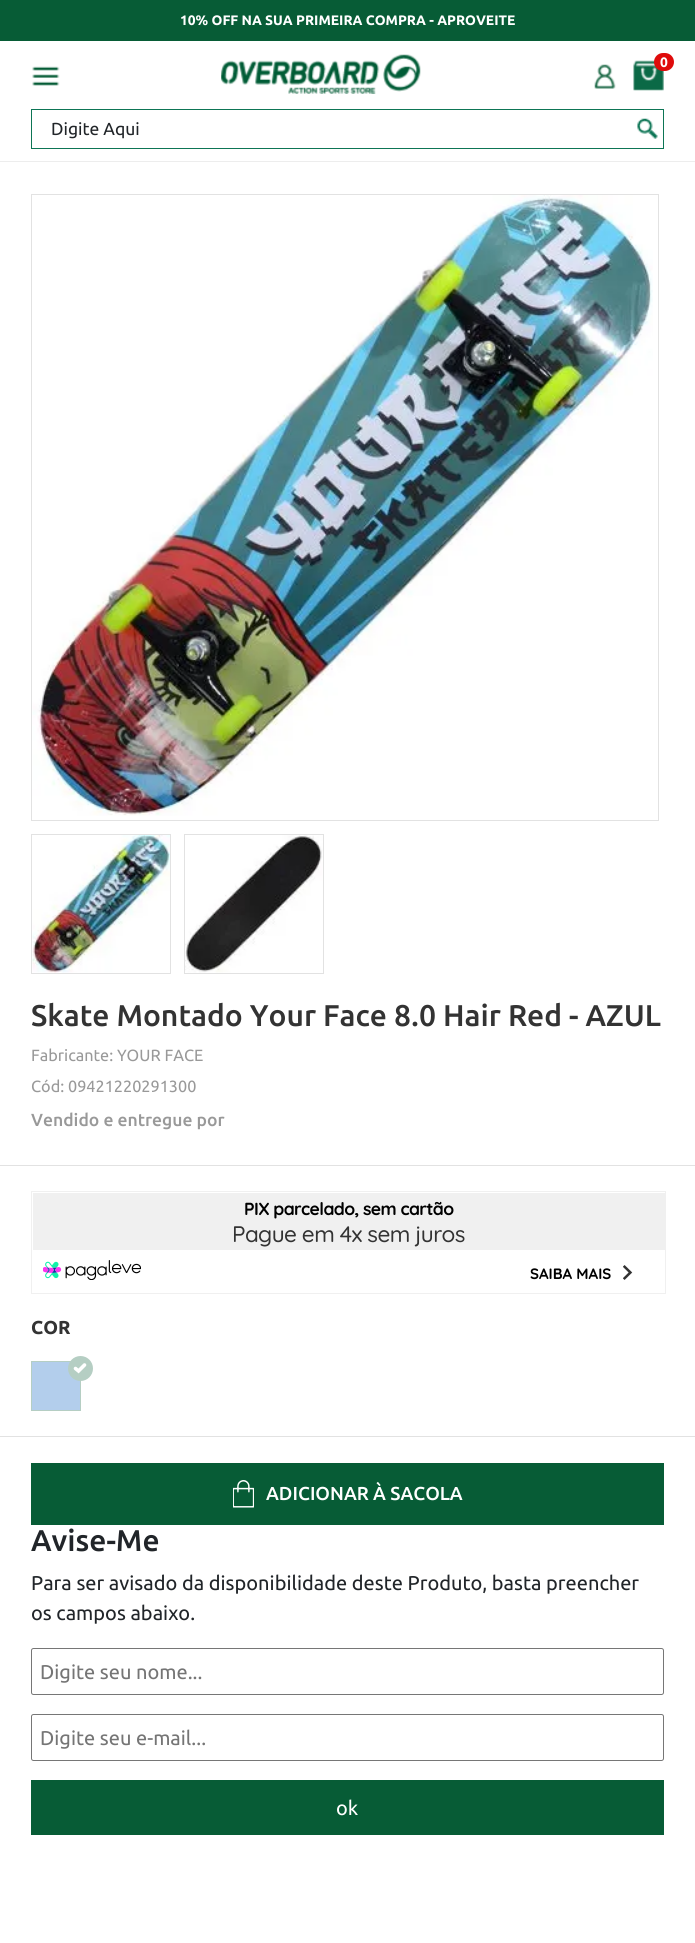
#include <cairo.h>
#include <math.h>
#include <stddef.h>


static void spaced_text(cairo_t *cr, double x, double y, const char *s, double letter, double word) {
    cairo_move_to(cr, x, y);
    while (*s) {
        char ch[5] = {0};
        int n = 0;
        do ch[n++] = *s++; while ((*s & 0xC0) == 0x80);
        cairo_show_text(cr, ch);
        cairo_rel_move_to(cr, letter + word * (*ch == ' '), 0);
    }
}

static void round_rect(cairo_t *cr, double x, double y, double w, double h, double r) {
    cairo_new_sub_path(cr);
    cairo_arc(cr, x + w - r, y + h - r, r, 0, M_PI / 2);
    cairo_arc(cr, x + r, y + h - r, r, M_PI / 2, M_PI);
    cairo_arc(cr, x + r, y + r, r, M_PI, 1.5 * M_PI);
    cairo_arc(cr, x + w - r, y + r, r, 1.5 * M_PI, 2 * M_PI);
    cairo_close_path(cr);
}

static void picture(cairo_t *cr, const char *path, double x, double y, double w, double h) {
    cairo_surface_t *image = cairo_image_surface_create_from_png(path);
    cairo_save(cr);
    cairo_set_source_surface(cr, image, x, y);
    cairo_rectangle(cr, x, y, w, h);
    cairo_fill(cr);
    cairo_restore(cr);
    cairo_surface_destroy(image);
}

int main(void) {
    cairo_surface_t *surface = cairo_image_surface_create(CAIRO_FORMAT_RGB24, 695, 1943);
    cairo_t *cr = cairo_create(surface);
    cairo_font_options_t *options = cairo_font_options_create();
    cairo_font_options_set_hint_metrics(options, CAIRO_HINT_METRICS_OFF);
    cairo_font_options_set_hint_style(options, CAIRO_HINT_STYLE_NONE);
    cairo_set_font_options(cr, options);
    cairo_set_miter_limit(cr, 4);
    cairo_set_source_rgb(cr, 1, 1, 1);
    cairo_paint(cr);
    cairo_set_source_rgb(cr, 0.929, 0.929, 0.929);
    cairo_rectangle(cr, 0, 161, 695, 1);
    cairo_fill(cr);
    cairo_set_source_rgb(cr, 0.031, 0.361, 0.212);
    cairo_rectangle(cr, 0, 0, 695, 41);
    cairo_fill(cr);
    cairo_select_font_face(cr, "Ubuntu", CAIRO_FONT_SLANT_NORMAL, CAIRO_FONT_WEIGHT_BOLD);
    cairo_set_font_size(cr, 13.75);
    cairo_set_source_rgb(cr, 1, 1, 1);
    cairo_move_to(cr, 180, 25);
    cairo_show_text(cr, "10% OFF NA SUA PRIMEIRA COMPRA - APROVEITE");
    picture(cr, "img1.png", 221, 54, 200, 40);
    picture(cr, "img2.png", 633, 60, 31, 31);
    cairo_set_source_rgb(cr, 0.875, 0.043, 0.043);
    round_rect(cr, 654, 53, 20, 18, 9);
    cairo_fill(cr);
    cairo_set_source_rgb(cr, 1, 1, 1);
    cairo_move_to(cr, 660, 67);
    cairo_show_text(cr, "0");
    picture(cr, "img3.png", 594, 64, 22, 25);
    picture(cr, "img4.png", 32, 66, 28, 20);
    cairo_rectangle(cr, 31.5, 109.5, 632, 39);
    cairo_set_source_rgb(cr, 0.051, 0.459, 0.333);
    cairo_set_line_width(cr, 1);
    cairo_stroke(cr);
    cairo_select_font_face(cr, "Ubuntu", CAIRO_FONT_SLANT_NORMAL, CAIRO_FONT_WEIGHT_NORMAL);
    cairo_set_font_size(cr, 17.5);
    cairo_set_source_rgb(cr, 0.129, 0.145, 0.161);
    cairo_move_to(cr, 51, 135);
    cairo_show_text(cr, "Digite Aqui");
    picture(cr, "img5.png", 637, 118, 21, 21);
    cairo_rectangle(cr, 31.5, 194.5, 627, 626);
    cairo_set_source_rgb(cr, 0.886, 0.886, 0.886);
    cairo_stroke(cr);
    picture(cr, "img6.png", 32, 195, 621, 621);
    cairo_rectangle(cr, 31.5, 834.5, 139, 139);
    cairo_stroke(cr);
    picture(cr, "img7.png", 32, 835, 138, 138);
    cairo_rectangle(cr, 184.5, 834.5, 139, 139);
    cairo_stroke(cr);
    picture(cr, "img8.png", 185, 835, 138, 138);
    cairo_rectangle(cr, 0, 1165, 695, 1);
    cairo_fill(cr);
    cairo_select_font_face(cr, "Ubuntu Medium", CAIRO_FONT_SLANT_NORMAL, CAIRO_FONT_WEIGHT_NORMAL);
    cairo_set_font_size(cr, 30);
    cairo_set_source_rgb(cr, 0.2, 0.2, 0.2);
    cairo_move_to(cr, 31, 1026);
    cairo_show_text(cr, "Skate Montado Your Face 8.0 Hair Red - AZUL");
    cairo_select_font_face(cr, "Ubuntu", CAIRO_FONT_SLANT_NORMAL, CAIRO_FONT_WEIGHT_NORMAL);
    cairo_set_font_size(cr, 16.25);
    cairo_set_source_rgb(cr, 0.6, 0.6, 0.6);
    cairo_move_to(cr, 31, 1061);
    cairo_show_text(cr, "Fabricante: YOUR FACE");
    cairo_move_to(cr, 31, 1092);
    cairo_show_text(cr, "Cód: 09421220291300");
    cairo_select_font_face(cr, "Ubuntu Medium", CAIRO_FONT_SLANT_NORMAL, CAIRO_FONT_WEIGHT_NORMAL);
    cairo_set_font_size(cr, 17.5);
    cairo_move_to(cr, 31, 1126);
    cairo_show_text(cr, "Vendido e entregue por");
    cairo_rectangle(cr, 31.5, 1191.5, 634, 102);
    cairo_set_source_rgb(cr, 0.941, 0.941, 0.941);
    cairo_stroke(cr);
    cairo_rectangle(cr, 33, 1193, 632, 57);
    cairo_fill(cr);
    cairo_select_font_face(cr, "Quicksand", CAIRO_FONT_SLANT_NORMAL, CAIRO_FONT_WEIGHT_BOLD);
    cairo_set_source_rgb(cr, 0, 0, 0);
    spaced_text(cr, 244, 1215, "PIX parcelado, sem cartão", -0.6, 0);
    cairo_select_font_face(cr, "Quicksand Medium", CAIRO_FONT_SLANT_NORMAL, CAIRO_FONT_WEIGHT_NORMAL);
    cairo_set_font_size(cr, 22.5);
    cairo_set_source_rgb(cr, 0.2, 0.2, 0.2);
    spaced_text(cr, 232, 1242, "Pague em 4x sem juros", -0.6, 0);
    picture(cr, "img9.png", 43, 1260, 98, 20);
    cairo_select_font_face(cr, "Quicksand", CAIRO_FONT_SLANT_NORMAL, CAIRO_FONT_WEIGHT_BOLD);
    cairo_set_font_size(cr, 15);
    cairo_set_source_rgb(cr, 0, 0, 0);
    cairo_move_to(cr, 530, 1279);
    cairo_show_text(cr, "SAIBA MAIS");
    picture(cr, "img10.png", 623, 1265, 10, 15);
    cairo_set_source_rgb(cr, 0.886, 0.886, 0.886);
    cairo_rectangle(cr, 0, 1436, 695, 1);
    cairo_fill(cr);
    cairo_select_font_face(cr, "Ubuntu", CAIRO_FONT_SLANT_NORMAL, CAIRO_FONT_WEIGHT_BOLD);
    cairo_set_font_size(cr, 18.75);
    cairo_set_source_rgb(cr, 0.2, 0.2, 0.2);
    cairo_move_to(cr, 31, 1334);
    cairo_show_text(cr, "COR");
    cairo_set_source_rgb(cr, 0.702, 0.808, 0.922);
    cairo_rectangle(cr, 31.5, 1361.5, 49, 49);
    cairo_fill_preserve(cr);
    cairo_set_source_rgb(cr, 0.71, 0.808, 0.765);
    cairo_stroke(cr);
    cairo_arc(cr, 80.5, 1368.5, 12.5, 0, 2 * M_PI);
    cairo_fill(cr);
    cairo_new_path(cr);
    cairo_move_to(cr, 75.5, 1368.5);
    cairo_line_to(cr, 78.5, 1371);
    cairo_line_to(cr, 84.5, 1365);
    cairo_set_source_rgb(cr, 1, 1, 1);
    cairo_set_line_width(cr, 3.6);
    cairo_set_line_cap(cr, CAIRO_LINE_CAP_ROUND);
    cairo_stroke(cr);
    cairo_set_source_rgb(cr, 0.031, 0.361, 0.212);
    cairo_rectangle(cr, 31, 1463, 633, 62);
    cairo_fill(cr);
    picture(cr, "img11.png", 233, 1480, 21, 28);
    cairo_select_font_face(cr, "Ubuntu Medium", CAIRO_FONT_SLANT_NORMAL, CAIRO_FONT_WEIGHT_NORMAL);
    cairo_set_source_rgb(cr, 1, 1, 1);
    cairo_move_to(cr, 266, 1500);
    cairo_show_text(cr, "ADICIONAR À SACOLA");
    cairo_set_font_size(cr, 30);
    cairo_set_source_rgb(cr, 0.129, 0.145, 0.161);
    cairo_move_to(cr, 31, 1551);
    cairo_show_text(cr, "Avise-Me");
    cairo_select_font_face(cr, "Ubuntu", CAIRO_FONT_SLANT_NORMAL, CAIRO_FONT_WEIGHT_NORMAL);
    cairo_set_font_size(cr, 20);
    cairo_move_to(cr, 31, 1590);
    cairo_show_text(cr, "Para ser avisado da disponibilidade deste Produto, basta preencher");
    cairo_move_to(cr, 31, 1620);
    cairo_show_text(cr, "os campos abaixo.");
    round_rect(cr, 31.5, 1648.5, 632, 46, 2);
    cairo_set_source_rgb(cr, 0.463, 0.463, 0.463);
    cairo_set_line_width(cr, 1);
    cairo_set_line_cap(cr, CAIRO_LINE_CAP_BUTT);
    cairo_stroke(cr);
    cairo_set_source_rgb(cr, 0.459, 0.459, 0.459);
    cairo_move_to(cr, 40, 1679);
    cairo_show_text(cr, "Digite seu nome...");
    round_rect(cr, 31.5, 1714.5, 632, 46, 2);
    cairo_set_source_rgb(cr, 0.463, 0.463, 0.463);
    cairo_stroke(cr);
    cairo_set_source_rgb(cr, 0.459, 0.459, 0.459);
    cairo_move_to(cr, 40, 1745);
    cairo_show_text(cr, "Digite seu e-mail...");
    cairo_set_source_rgb(cr, 0.031, 0.361, 0.212);
    cairo_rectangle(cr, 31, 1780, 633, 55);
    cairo_fill(cr);
    cairo_set_source_rgb(cr, 1, 1, 1);
    cairo_move_to(cr, 336, 1815);
    cairo_show_text(cr, "ok");
    cairo_surface_write_to_png(surface, "page.png");
    cairo_font_options_destroy(options);
    cairo_destroy(cr);
    cairo_surface_destroy(surface);
    return 0;
}
